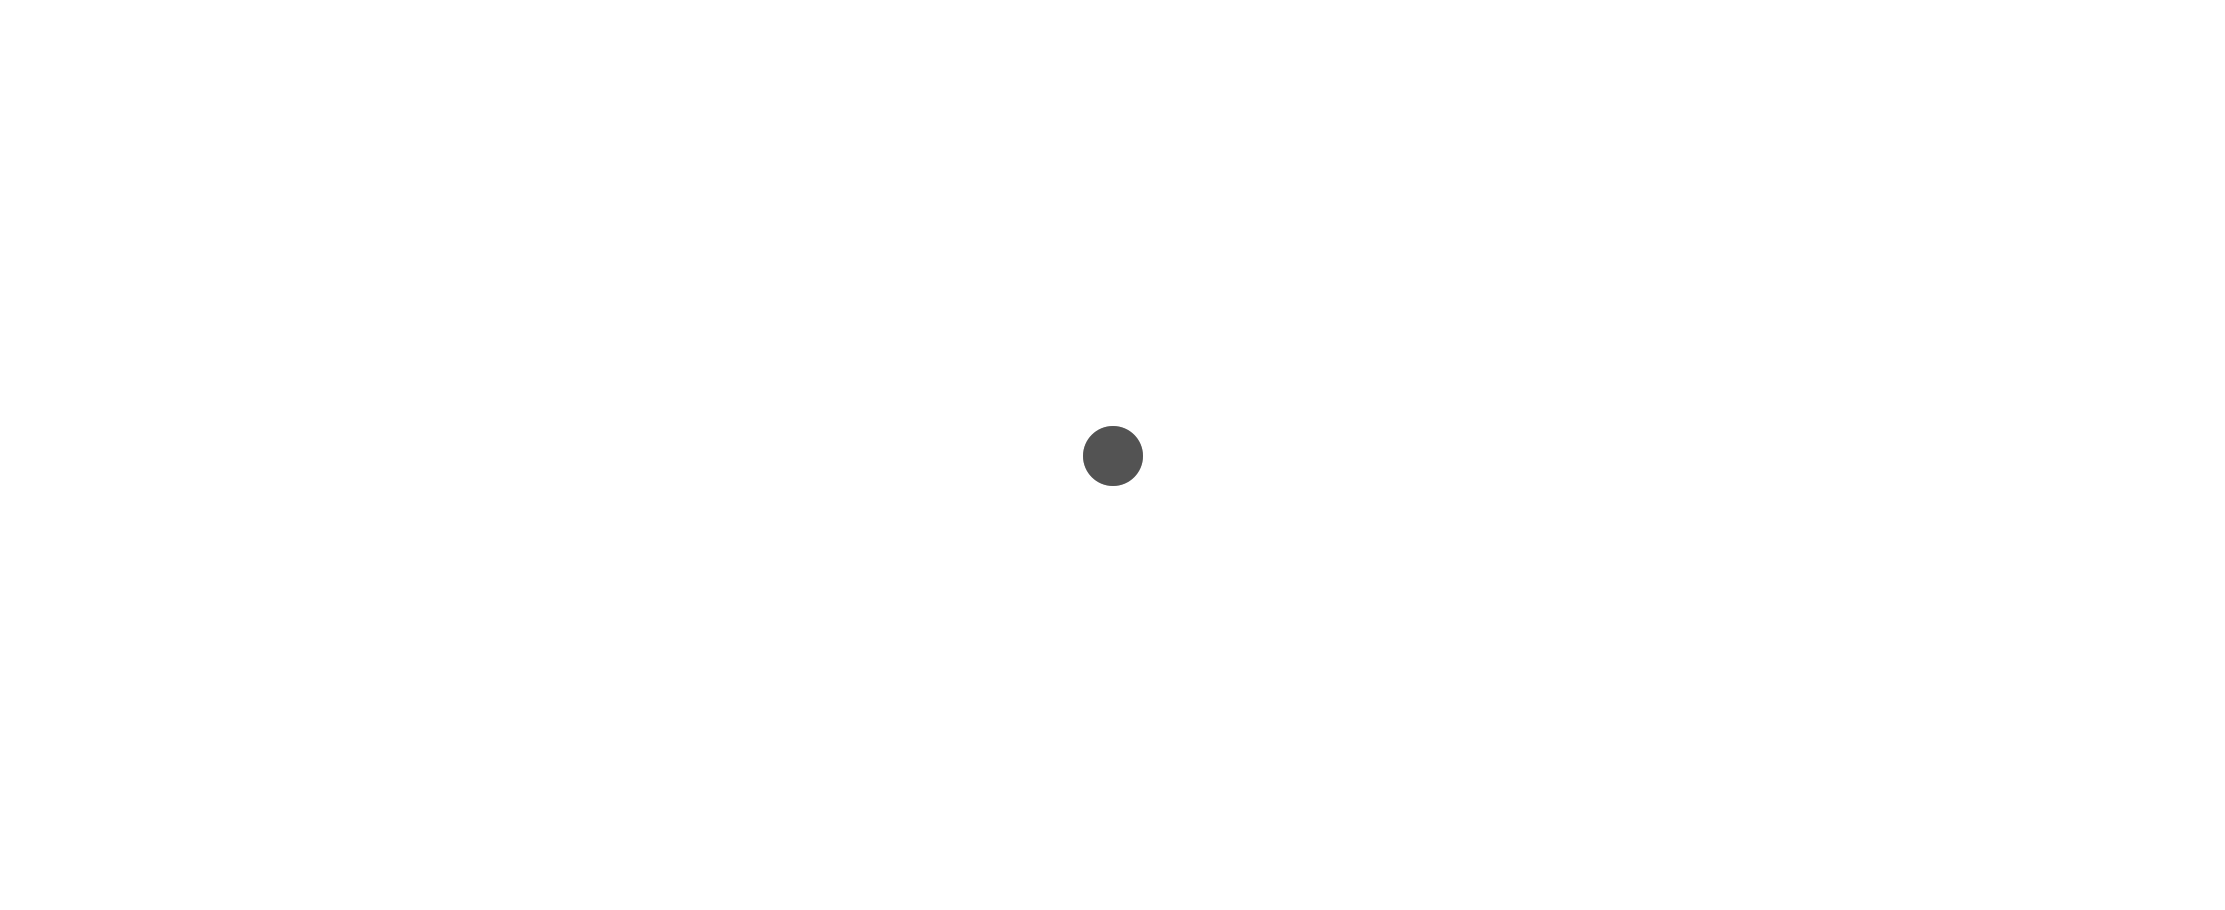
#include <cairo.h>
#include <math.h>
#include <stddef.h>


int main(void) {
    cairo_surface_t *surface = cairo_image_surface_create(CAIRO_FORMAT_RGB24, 2225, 910);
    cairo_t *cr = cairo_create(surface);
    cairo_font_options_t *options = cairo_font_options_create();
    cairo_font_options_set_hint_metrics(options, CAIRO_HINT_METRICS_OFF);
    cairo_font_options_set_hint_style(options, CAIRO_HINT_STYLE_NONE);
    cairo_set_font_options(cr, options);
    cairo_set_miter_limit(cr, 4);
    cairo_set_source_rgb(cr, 1, 1, 1);
    cairo_paint(cr);
    cairo_set_source_rgb(cr, 0.522, 0.522, 0.522);
    cairo_arc(cr, 1113, 456, 30, 0, 2 * M_PI);
    cairo_fill(cr);
    cairo_set_source_rgba(cr, 0.2, 0.2, 0.2, 0.6);
    cairo_arc(cr, 1113, 456, 30, 0, 2 * M_PI);
    cairo_fill(cr);
    cairo_surface_write_to_png(surface, "page.png");
    cairo_font_options_destroy(options);
    cairo_destroy(cr);
    cairo_surface_destroy(surface);
    return 0;
}
